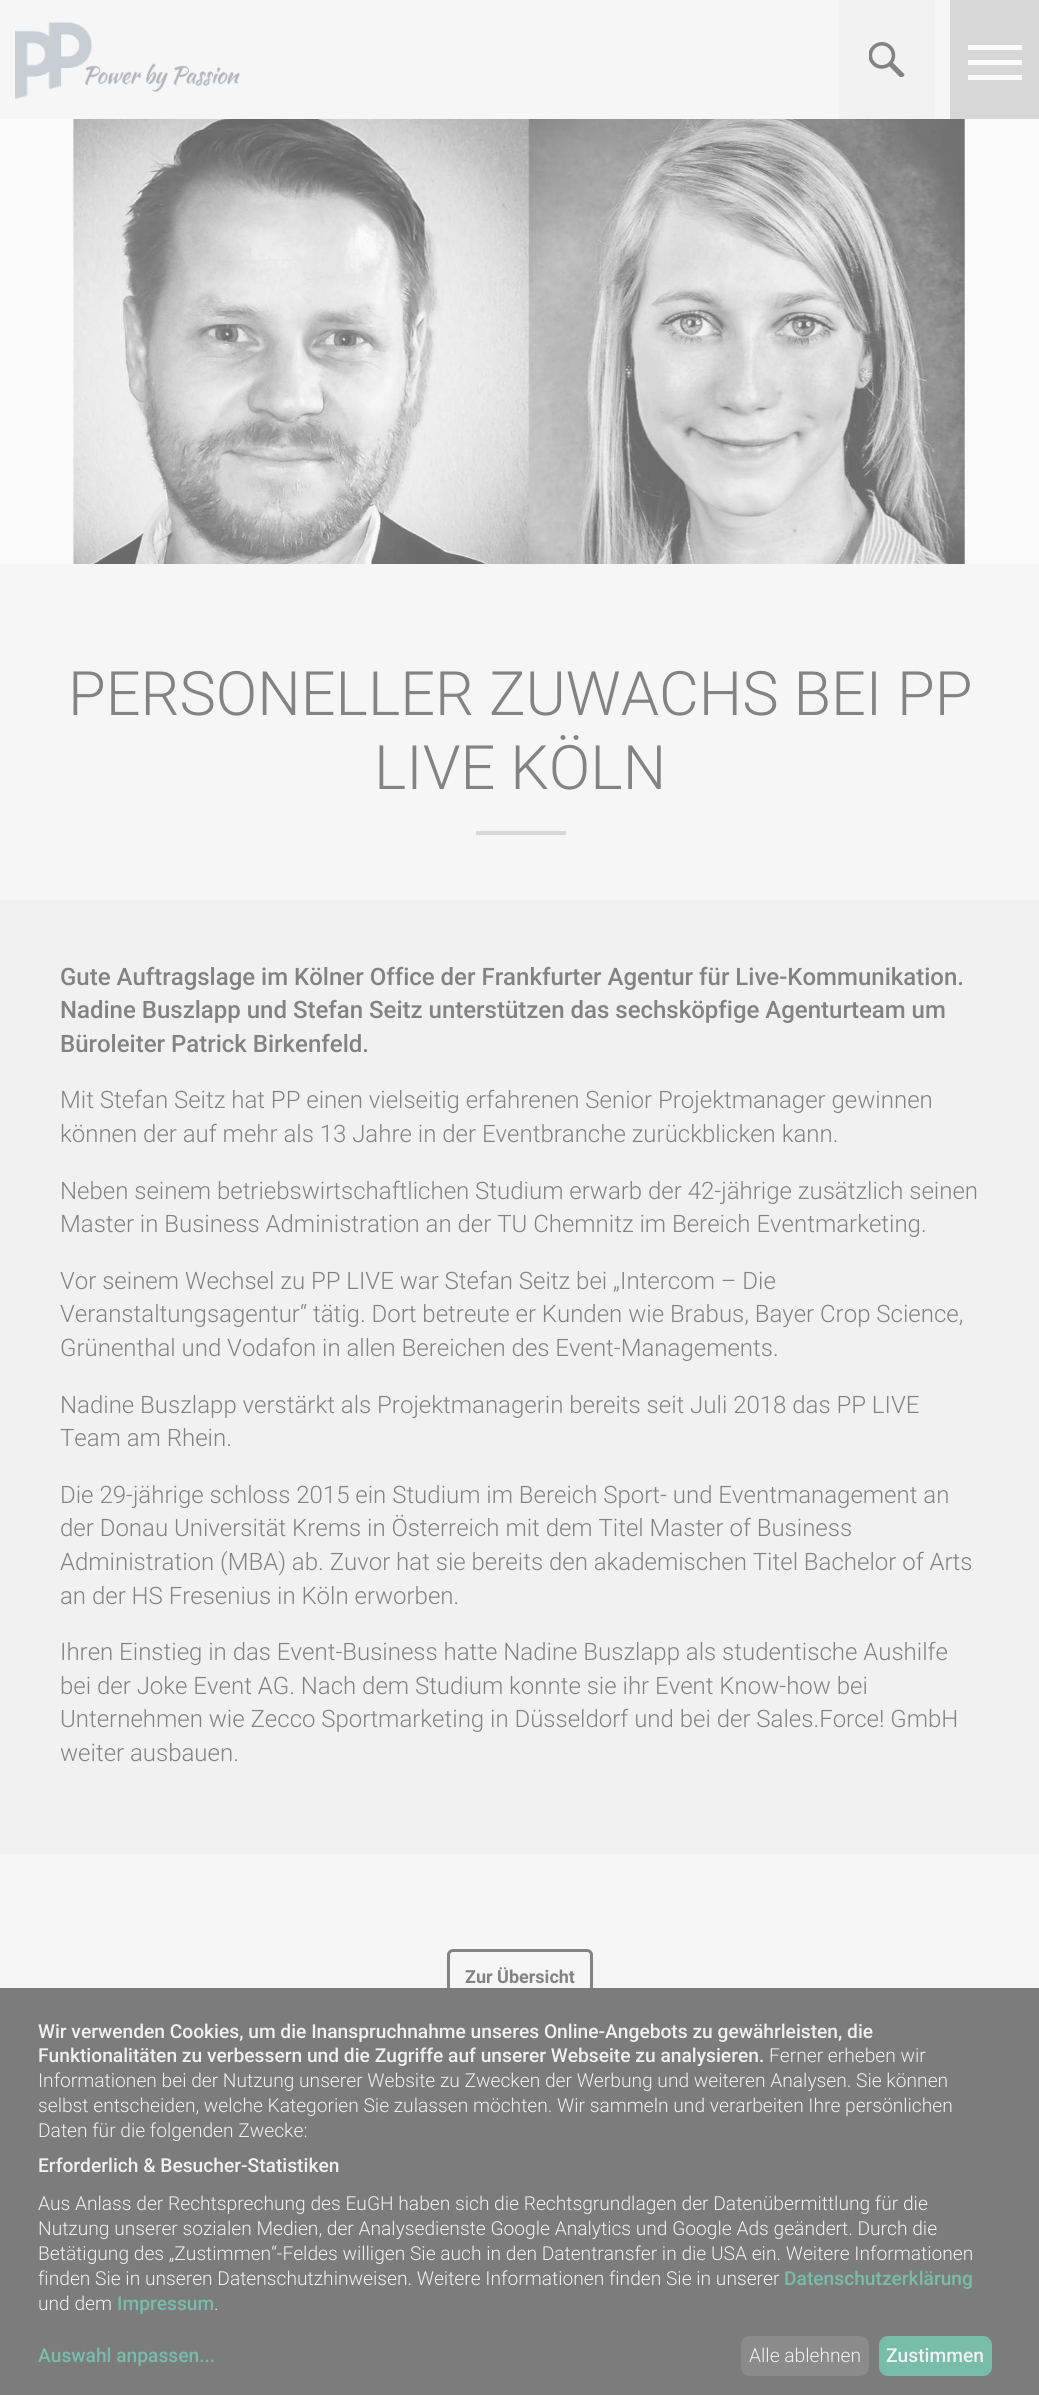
#include <cairo.h>
#include <math.h>
#include <stddef.h>


static void round_rect(cairo_t *cr, double x, double y, double w, double h, double r) {
    cairo_new_sub_path(cr);
    cairo_arc(cr, x + w - r, y + h - r, r, 0, M_PI / 2);
    cairo_arc(cr, x + r, y + h - r, r, M_PI / 2, M_PI);
    cairo_arc(cr, x + r, y + r, r, M_PI, 1.5 * M_PI);
    cairo_arc(cr, x + w - r, y + r, r, 1.5 * M_PI, 2 * M_PI);
    cairo_close_path(cr);
}

static void picture(cairo_t *cr, const char *path, double x, double y, double w, double h) {
    cairo_surface_t *image = cairo_image_surface_create_from_png(path);
    cairo_save(cr);
    cairo_set_source_surface(cr, image, x, y);
    cairo_rectangle(cr, x, y, w, h);
    cairo_fill(cr);
    cairo_restore(cr);
    cairo_surface_destroy(image);
}

int main(void) {
    cairo_surface_t *surface = cairo_image_surface_create(CAIRO_FORMAT_RGB24, 1039, 2395);
    cairo_t *cr = cairo_create(surface);
    cairo_font_options_t *options = cairo_font_options_create();
    cairo_font_options_set_hint_metrics(options, CAIRO_HINT_METRICS_OFF);
    cairo_font_options_set_hint_style(options, CAIRO_HINT_STYLE_NONE);
    cairo_set_font_options(cr, options);
    cairo_set_miter_limit(cr, 4);
    cairo_set_source_rgb(cr, 0.961, 0.961, 0.961);
    cairo_paint(cr);
    picture(cr, "img1.png", 15, 22, 225, 77);
    cairo_set_source_rgb(cr, 0.949, 0.949, 0.949);
    cairo_rectangle(cr, 839, 0, 96, 119);
    cairo_fill(cr);
    picture(cr, "img2.png", 869, 42, 36, 35);
    cairo_set_source_rgb(cr, 0.843, 0.843, 0.843);
    cairo_rectangle(cr, 950, 0, 89, 119);
    cairo_fill(cr);
    cairo_set_source_rgb(cr, 0.984, 0.984, 0.984);
    cairo_rectangle(cr, 968, 45, 54, 5);
    cairo_fill(cr);
    cairo_rectangle(cr, 968, 60, 54, 5);
    cairo_fill(cr);
    cairo_rectangle(cr, 968, 75, 54, 5);
    cairo_fill(cr);
    picture(cr, "img3.png", 0, 119, 1039, 445);
    cairo_select_font_face(cr, "Roboto Light", CAIRO_FONT_SLANT_NORMAL, CAIRO_FONT_WEIGHT_NORMAL);
    cairo_set_font_size(cr, 61.25);
    cairo_set_source_rgb(cr, 0.514, 0.514, 0.514);
    cairo_move_to(cr, 68, 715);
    cairo_show_text(cr, "PERSONELLER ZUWACHS BEI PP");
    cairo_move_to(cr, 374, 789);
    cairo_show_text(cr, "LIVE KÖLN");
    cairo_set_source_rgb(cr, 0.843, 0.843, 0.843);
    cairo_rectangle(cr, 476, 831, 90, 4);
    cairo_fill(cr);
    cairo_set_source_rgb(cr, 0.945, 0.945, 0.945);
    cairo_rectangle(cr, 0, 900, 1039, 954);
    cairo_fill(cr);
    cairo_select_font_face(cr, "Roboto Medium", CAIRO_FONT_SLANT_NORMAL, CAIRO_FONT_WEIGHT_NORMAL);
    cairo_set_font_size(cr, 24);
    cairo_set_source_rgb(cr, 0.514, 0.514, 0.514);
    cairo_move_to(cr, 60, 985);
    cairo_show_text(cr, "Gute Auftragslage im Kölner Office der Frankfurter Agentur für Live-Kommunikation.");
    cairo_move_to(cr, 60, 1018);
    cairo_show_text(cr, "Nadine Buszlapp und Stefan Seitz unterstützen das sechsköpfige Agenturteam um");
    cairo_move_to(cr, 60, 1052);
    cairo_show_text(cr, "Büroleiter Patrick Birkenfeld.");
    cairo_select_font_face(cr, "Roboto Light", CAIRO_FONT_SLANT_NORMAL, CAIRO_FONT_WEIGHT_NORMAL);
    cairo_move_to(cr, 60, 1108);
    cairo_show_text(cr, "Mit Stefan Seitz hat PP einen vielseitig erfahrenen Senior Projektmanager gewinnen");
    cairo_move_to(cr, 60, 1142);
    cairo_show_text(cr, "können der auf mehr als 13 Jahre in der Eventbranche zurückblicken kann.");
    cairo_move_to(cr, 60, 1199);
    cairo_show_text(cr, "Neben seinem betriebswirtschaftlichen Studium erwarb der 42-jährige zusätzlich seinen");
    cairo_move_to(cr, 60, 1232);
    cairo_show_text(cr, "Master in Business Administration an der TU Chemnitz im Bereich Eventmarketing.");
    cairo_move_to(cr, 60, 1289);
    cairo_show_text(cr, "Vor seinem Wechsel zu PP LIVE war Stefan Seitz bei „Intercom – Die");
    cairo_move_to(cr, 60, 1322);
    cairo_show_text(cr, "Veranstaltungsagentur“ tätig. Dort betreute er Kunden wie Brabus, Bayer Crop Science,");
    cairo_move_to(cr, 60, 1356);
    cairo_show_text(cr, "Grünenthal und Vodafon in allen Bereichen des Event-Managements.");
    cairo_move_to(cr, 60, 1413);
    cairo_show_text(cr, "Nadine Buszlapp verstärkt als Projektmanagerin bereits seit Juli 2018 das PP LIVE");
    cairo_move_to(cr, 60, 1446);
    cairo_show_text(cr, "Team am Rhein.");
    cairo_move_to(cr, 60, 1503);
    cairo_show_text(cr, "Die 29-jährige schloss 2015 ein Studium im Bereich Sport- und Eventmanagement an");
    cairo_move_to(cr, 60, 1536);
    cairo_show_text(cr, "der Donau Universität Krems in Österreich mit dem Titel Master of Business");
    cairo_move_to(cr, 60, 1570);
    cairo_show_text(cr, "Administration (MBA) ab. Zuvor hat sie bereits den akademischen Titel Bachelor of Arts");
    cairo_move_to(cr, 60, 1604);
    cairo_show_text(cr, "an der HS Fresenius in Köln erworben.");
    cairo_move_to(cr, 60, 1660);
    cairo_show_text(cr, "Ihren Einstieg in das Event-Business hatte Nadine Buszlapp als studentische Aushilfe");
    cairo_move_to(cr, 60, 1694);
    cairo_show_text(cr, "bei der Joke Event AG. Nach dem Studium konnte sie ihr Event Know-how bei");
    cairo_move_to(cr, 60, 1727);
    cairo_show_text(cr, "Unternehmen wie Zecco Sportmarketing in Düsseldorf und bei der Sales.Force! GmbH");
    cairo_move_to(cr, 60, 1761);
    cairo_show_text(cr, "weiter ausbauen.");
    round_rect(cr, 448.5, 1950.5, 143, 54, 4.5);
    cairo_set_line_width(cr, 3);
    cairo_stroke(cr);
    cairo_select_font_face(cr, "Roboto", CAIRO_FONT_SLANT_NORMAL, CAIRO_FONT_WEIGHT_BOLD);
    cairo_set_font_size(cr, 18);
    cairo_move_to(cr, 465, 1983);
    cairo_show_text(cr, "Zur Übersicht");
    cairo_set_source_rgb(cr, 0.486, 0.486, 0.486);
    cairo_rectangle(cr, 0, 1988, 1039, 407);
    cairo_fill(cr);
    cairo_select_font_face(cr, "Roboto Medium", CAIRO_FONT_SLANT_NORMAL, CAIRO_FONT_WEIGHT_NORMAL);
    cairo_set_font_size(cr, 19.2);
    cairo_set_source_rgb(cr, 0.945, 0.945, 0.945);
    cairo_move_to(cr, 38, 2038);
    cairo_show_text(cr, "Wir verwenden Cookies, um die Inanspruchnahme unseres Online-Angebots zu gewährleisten, die");
    cairo_move_to(cr, 38, 2062);
    cairo_show_text(cr, "Funktionalitäten zu verbessern und die Zugriffe auf unserer Webseite zu analysieren.");
    cairo_select_font_face(cr, "Roboto Light", CAIRO_FONT_SLANT_NORMAL, CAIRO_FONT_WEIGHT_NORMAL);
    cairo_move_to(cr, 769, 2062);
    cairo_show_text(cr, "Ferner erheben wir");
    cairo_move_to(cr, 38, 2087);
    cairo_show_text(cr, "Informationen bei der Nutzung unserer Website zu Zwecken der Werbung und weiteren Analysen. Sie können");
    cairo_move_to(cr, 38, 2112);
    cairo_show_text(cr, "selbst entscheiden, welche Kategorien Sie zulassen möchten. Wir sammeln und verarbeiten Ihre persönlichen");
    cairo_move_to(cr, 38, 2137);
    cairo_show_text(cr, "Daten für die folgenden Zwecke:");
    cairo_select_font_face(cr, "Roboto Medium", CAIRO_FONT_SLANT_NORMAL, CAIRO_FONT_WEIGHT_NORMAL);
    cairo_move_to(cr, 38, 2172);
    cairo_show_text(cr, "Erforderlich & Besucher-Statistiken");
    cairo_select_font_face(cr, "Roboto Light", CAIRO_FONT_SLANT_NORMAL, CAIRO_FONT_WEIGHT_NORMAL);
    cairo_move_to(cr, 38, 2210);
    cairo_show_text(cr, "Aus Anlass der Rechtsprechung des EuGH haben sich die Rechtsgrundlagen der Datenübermittlung für die");
    cairo_move_to(cr, 38, 2235);
    cairo_show_text(cr, "Nutzung unserer sozialen Medien, der Analysedienste Google Analytics und Google Ads geändert. Durch die");
    cairo_move_to(cr, 38, 2260);
    cairo_show_text(cr, "Betätigung des „Zustimmen“-Feldes willigen Sie auch in den Datentransfer in die USA ein. Weitere Informationen");
    cairo_move_to(cr, 38, 2285);
    cairo_show_text(cr, "finden Sie in unseren Datenschutzhinweisen. Weitere Informationen finden Sie in unserer");
    cairo_select_font_face(cr, "Roboto Medium", CAIRO_FONT_SLANT_NORMAL, CAIRO_FONT_WEIGHT_NORMAL);
    cairo_set_source_rgb(cr, 0.467, 0.741, 0.659);
    cairo_move_to(cr, 784, 2285);
    cairo_show_text(cr, "Datenschutzerklärung");
    cairo_select_font_face(cr, "Roboto Light", CAIRO_FONT_SLANT_NORMAL, CAIRO_FONT_WEIGHT_NORMAL);
    cairo_set_source_rgb(cr, 0.945, 0.945, 0.945);
    cairo_move_to(cr, 38, 2310);
    cairo_show_text(cr, "und dem");
    cairo_select_font_face(cr, "Roboto Medium", CAIRO_FONT_SLANT_NORMAL, CAIRO_FONT_WEIGHT_NORMAL);
    cairo_set_source_rgb(cr, 0.467, 0.741, 0.659);
    cairo_move_to(cr, 117, 2310);
    cairo_show_text(cr, "Impressum");
    cairo_select_font_face(cr, "Roboto Light", CAIRO_FONT_SLANT_NORMAL, CAIRO_FONT_WEIGHT_NORMAL);
    cairo_set_source_rgb(cr, 0.945, 0.945, 0.945);
    cairo_move_to(cr, 214, 2310);
    cairo_show_text(cr, ".");
    cairo_select_font_face(cr, "Roboto Medium", CAIRO_FONT_SLANT_NORMAL, CAIRO_FONT_WEIGHT_NORMAL);
    cairo_set_source_rgb(cr, 0.467, 0.741, 0.659);
    cairo_move_to(cr, 38, 2362);
    cairo_show_text(cr, "Auswahl anpassen...");
    cairo_set_source_rgb(cr, 0.545, 0.545, 0.545);
    round_rect(cr, 741, 2336, 128, 40, 9);
    cairo_fill(cr);
    cairo_select_font_face(cr, "Roboto Light", CAIRO_FONT_SLANT_NORMAL, CAIRO_FONT_WEIGHT_NORMAL);
    cairo_set_source_rgb(cr, 0.945, 0.945, 0.945);
    cairo_move_to(cr, 749, 2362);
    cairo_show_text(cr, "Alle ablehnen");
    cairo_set_source_rgb(cr, 0.467, 0.741, 0.659);
    round_rect(cr, 879, 2336, 113, 40, 9);
    cairo_fill(cr);
    cairo_select_font_face(cr, "Roboto Medium", CAIRO_FONT_SLANT_NORMAL, CAIRO_FONT_WEIGHT_NORMAL);
    cairo_set_source_rgb(cr, 0.945, 0.945, 0.945);
    cairo_move_to(cr, 886, 2362);
    cairo_show_text(cr, "Zustimmen");
    cairo_surface_write_to_png(surface, "page.png");
    cairo_font_options_destroy(options);
    cairo_destroy(cr);
    cairo_surface_destroy(surface);
    return 0;
}
